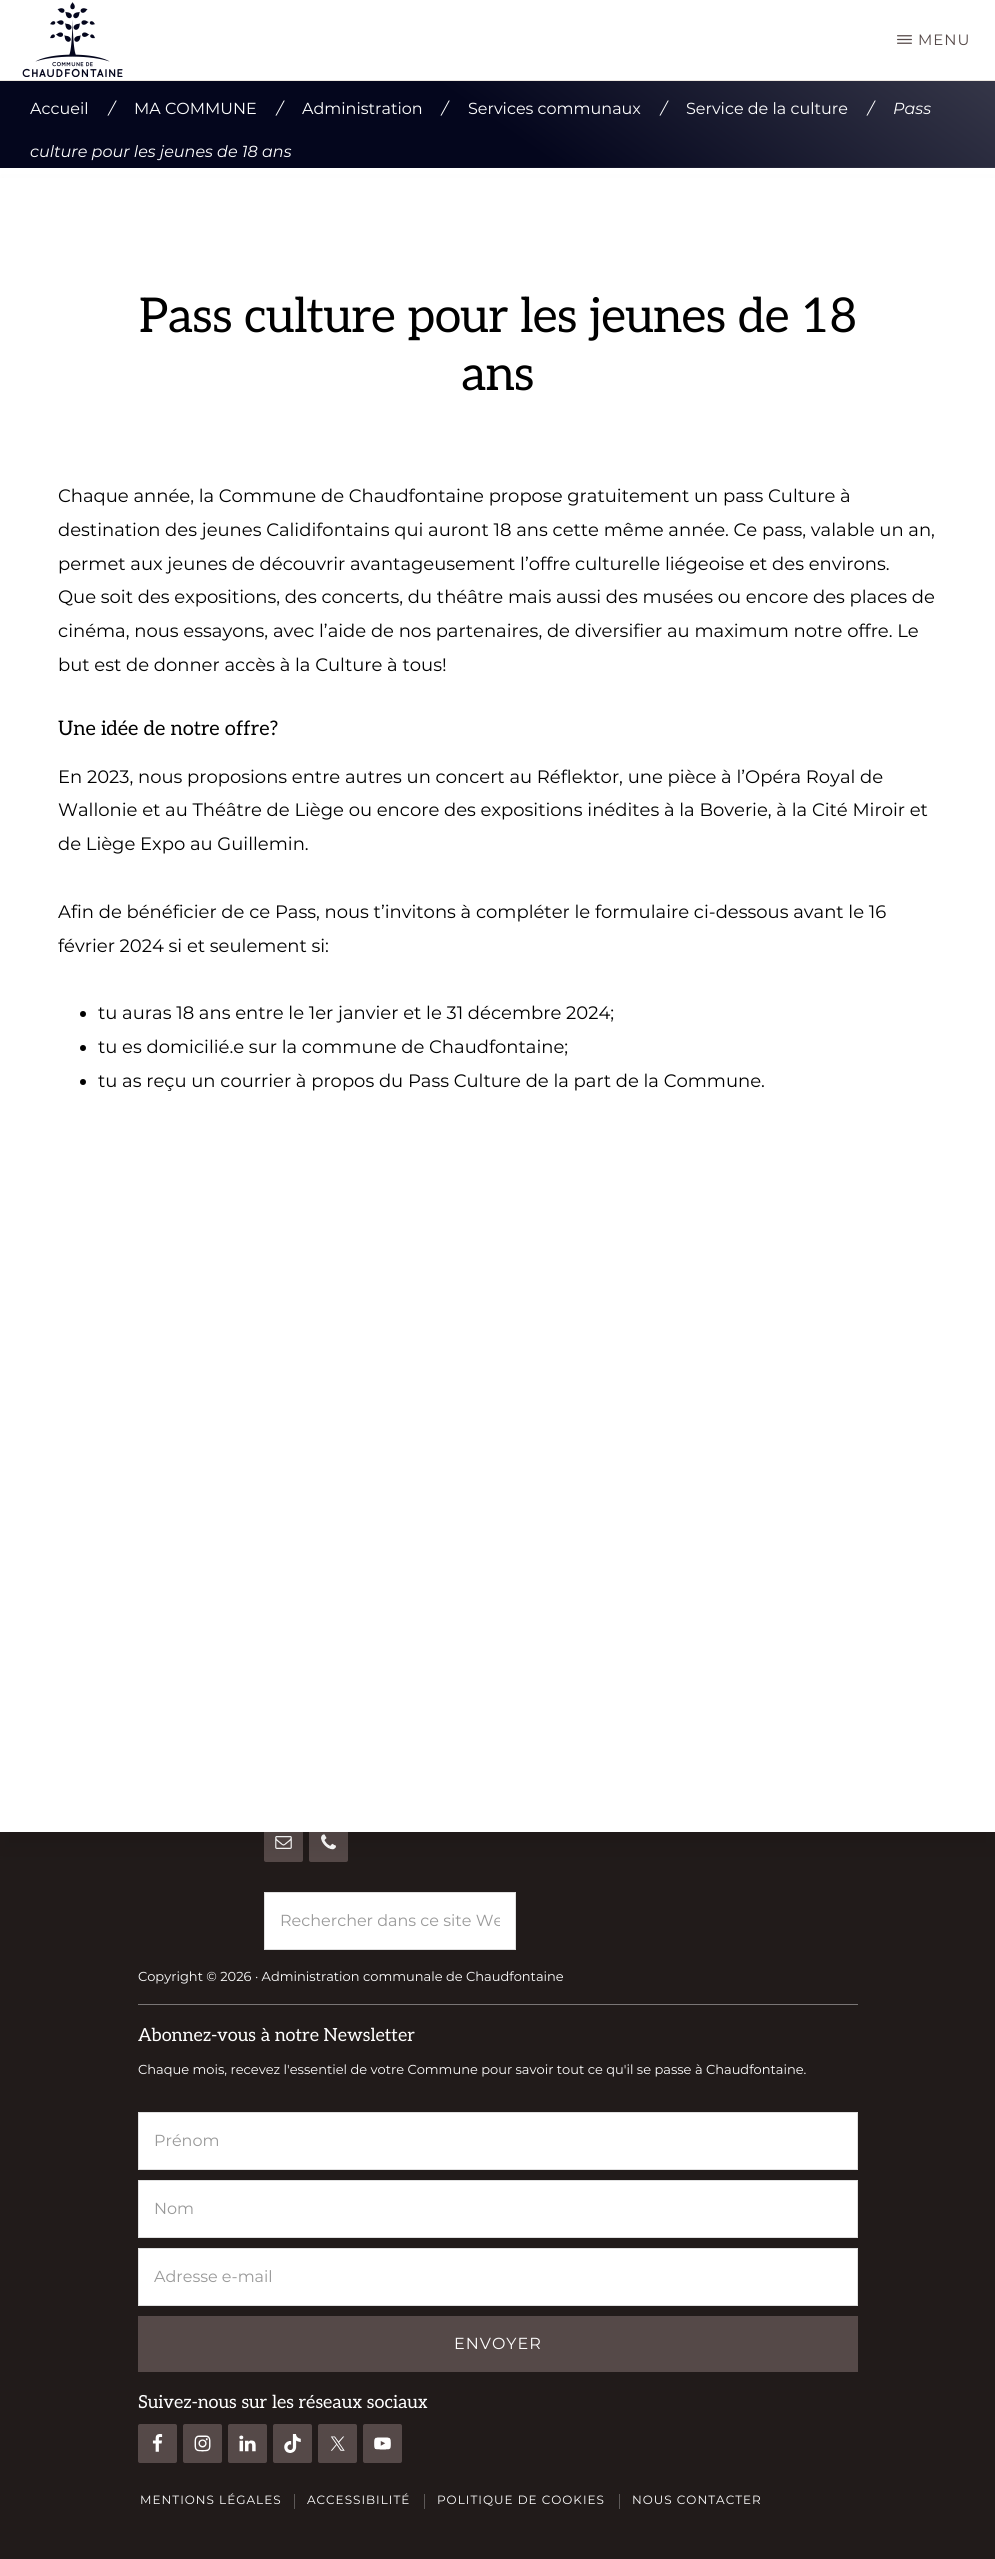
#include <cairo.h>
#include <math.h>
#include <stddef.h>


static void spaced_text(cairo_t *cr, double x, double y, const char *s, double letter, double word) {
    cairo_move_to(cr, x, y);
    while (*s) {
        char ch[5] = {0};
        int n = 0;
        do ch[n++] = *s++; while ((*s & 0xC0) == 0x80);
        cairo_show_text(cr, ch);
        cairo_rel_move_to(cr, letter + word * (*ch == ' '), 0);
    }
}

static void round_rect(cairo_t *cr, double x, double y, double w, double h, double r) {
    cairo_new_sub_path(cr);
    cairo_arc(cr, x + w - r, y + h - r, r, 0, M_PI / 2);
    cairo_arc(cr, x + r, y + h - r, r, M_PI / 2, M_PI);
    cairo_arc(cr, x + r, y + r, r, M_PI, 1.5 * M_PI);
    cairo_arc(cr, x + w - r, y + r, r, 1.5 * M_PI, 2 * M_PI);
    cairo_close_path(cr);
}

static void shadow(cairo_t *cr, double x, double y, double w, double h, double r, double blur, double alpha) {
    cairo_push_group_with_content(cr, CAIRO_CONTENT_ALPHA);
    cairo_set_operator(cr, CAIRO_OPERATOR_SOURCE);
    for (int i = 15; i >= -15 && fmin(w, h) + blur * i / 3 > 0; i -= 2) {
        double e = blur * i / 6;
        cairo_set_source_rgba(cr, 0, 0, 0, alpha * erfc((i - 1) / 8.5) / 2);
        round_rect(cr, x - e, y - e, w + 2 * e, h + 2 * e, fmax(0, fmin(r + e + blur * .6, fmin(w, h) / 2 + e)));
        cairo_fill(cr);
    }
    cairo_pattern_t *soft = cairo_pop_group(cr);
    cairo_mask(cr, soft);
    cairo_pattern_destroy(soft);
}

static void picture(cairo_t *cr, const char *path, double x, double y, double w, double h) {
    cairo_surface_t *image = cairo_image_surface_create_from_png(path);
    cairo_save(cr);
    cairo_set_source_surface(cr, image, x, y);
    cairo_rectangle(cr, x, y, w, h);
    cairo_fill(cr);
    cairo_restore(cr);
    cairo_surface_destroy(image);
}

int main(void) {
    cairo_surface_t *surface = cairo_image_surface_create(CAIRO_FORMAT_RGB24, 995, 2559);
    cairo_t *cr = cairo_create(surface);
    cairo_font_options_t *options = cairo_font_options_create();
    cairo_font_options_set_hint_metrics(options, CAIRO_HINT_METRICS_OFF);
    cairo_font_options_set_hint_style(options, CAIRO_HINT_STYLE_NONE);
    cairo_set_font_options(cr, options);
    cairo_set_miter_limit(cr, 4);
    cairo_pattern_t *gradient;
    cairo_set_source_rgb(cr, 1, 1, 1);
    cairo_paint(cr);
    cairo_set_source_rgb(cr, 0.933, 0.914, 0.89);
    cairo_rectangle(cr, 0, 80, 995, 1);
    cairo_fill(cr);
    picture(cr, "img1.png", 22, 2, 101, 75);
    picture(cr, "img2.png", 897, 35, 15, 9);
    cairo_select_font_face(cr, "Montserrat", CAIRO_FONT_SLANT_NORMAL, CAIRO_FONT_WEIGHT_NORMAL);
    cairo_set_font_size(cr, 15);
    cairo_set_source_rgb(cr, 0.333, 0.286, 0.282);
    spaced_text(cr, 918, 45, "MENU", 1, 0);
    gradient = cairo_pattern_create_linear(681, -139, 314, 387);
    cairo_pattern_add_color_stop_rgba(gradient, 0, 0.208, 0.212, 0.282, 1);
    cairo_pattern_add_color_stop_rgba(gradient, 0.5, 0.016, 0.024, 0.114, 1);
    cairo_set_source(cr, gradient);
    cairo_pattern_destroy(gradient);
    cairo_rectangle(cr, 0, 81, 995, 86);
    cairo_fill(cr);
    gradient = cairo_pattern_create_linear(681, -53, 314, 473);
    cairo_pattern_add_color_stop_rgba(gradient, 0, 0.208, 0.212, 0.282, 1);
    cairo_pattern_add_color_stop_rgba(gradient, 0.5, 0.016, 0.024, 0.114, 1);
    cairo_set_source(cr, gradient);
    cairo_pattern_destroy(gradient);
    cairo_rectangle(cr, 0, 167, 995, 1);
    cairo_fill(cr);
    cairo_set_font_size(cr, 16);
    cairo_set_source_rgb(cr, 1, 1, 1);
    cairo_move_to(cr, 30, 114);
    cairo_show_text(cr, "Accueil");
    cairo_select_font_face(cr, "Montserrat", CAIRO_FONT_SLANT_ITALIC, CAIRO_FONT_WEIGHT_NORMAL);
    cairo_move_to(cr, 109, 114);
    cairo_show_text(cr, "/");
    cairo_select_font_face(cr, "Montserrat", CAIRO_FONT_SLANT_NORMAL, CAIRO_FONT_WEIGHT_NORMAL);
    cairo_move_to(cr, 134, 114);
    cairo_show_text(cr, "MA COMMUNE");
    cairo_select_font_face(cr, "Montserrat", CAIRO_FONT_SLANT_ITALIC, CAIRO_FONT_WEIGHT_NORMAL);
    cairo_move_to(cr, 277, 114);
    cairo_show_text(cr, "/");
    cairo_select_font_face(cr, "Montserrat", CAIRO_FONT_SLANT_NORMAL, CAIRO_FONT_WEIGHT_NORMAL);
    cairo_move_to(cr, 302, 114);
    cairo_show_text(cr, "Administration");
    cairo_select_font_face(cr, "Montserrat", CAIRO_FONT_SLANT_ITALIC, CAIRO_FONT_WEIGHT_NORMAL);
    cairo_move_to(cr, 442, 114);
    cairo_show_text(cr, "/");
    cairo_select_font_face(cr, "Montserrat", CAIRO_FONT_SLANT_NORMAL, CAIRO_FONT_WEIGHT_NORMAL);
    cairo_move_to(cr, 468, 114);
    cairo_show_text(cr, "Services communaux");
    cairo_select_font_face(cr, "Montserrat", CAIRO_FONT_SLANT_ITALIC, CAIRO_FONT_WEIGHT_NORMAL);
    cairo_move_to(cr, 661, 114);
    cairo_show_text(cr, "/");
    cairo_select_font_face(cr, "Montserrat", CAIRO_FONT_SLANT_NORMAL, CAIRO_FONT_WEIGHT_NORMAL);
    cairo_move_to(cr, 686, 114);
    cairo_show_text(cr, "Service de la culture");
    cairo_select_font_face(cr, "Montserrat", CAIRO_FONT_SLANT_ITALIC, CAIRO_FONT_WEIGHT_NORMAL);
    cairo_move_to(cr, 868, 114);
    cairo_show_text(cr, "/");
    cairo_move_to(cr, 893, 114);
    cairo_show_text(cr, "Pass");
    cairo_move_to(cr, 30, 157);
    cairo_show_text(cr, "culture pour les jeunes de 18 ans");
    cairo_set_source_rgb(cr, 0.129, 0.106, 0.102);
    cairo_rectangle(cr, 0, 1832, 995, 727);
    cairo_fill(cr);
    cairo_set_source_rgb(cr, 0.333, 0.286, 0.282);
    round_rect(cr, 264, 1823, 39, 39, 2);
    cairo_fill(cr);
    picture(cr, "img3.png", 275, 1836, 17, 13);
    round_rect(cr, 309, 1823, 39, 39, 2);
    cairo_fill(cr);
    picture(cr, "img4.png", 321, 1834, 15, 16);
    cairo_set_source_rgb(cr, 0, 0, 0);
    shadow(cr, 0, 189, 995, 1663, 0, 10, 0.07);
    cairo_set_source_rgb(cr, 1, 1, 1);
    cairo_rectangle(cr, 0, 178, 995, 1654);
    cairo_fill(cr);
    cairo_select_font_face(cr, "Aleo", CAIRO_FONT_SLANT_NORMAL, CAIRO_FONT_WEIGHT_NORMAL);
    cairo_set_font_size(cr, 48);
    cairo_set_source_rgb(cr, 0, 0, 0);
    spaced_text(cr, 139, 332, "Pass culture pour les jeunes de 18", -0.5, 0);
    spaced_text(cr, 461, 390, "ans", -0.5, 0);
    cairo_select_font_face(cr, "Montserrat", CAIRO_FONT_SLANT_NORMAL, CAIRO_FONT_WEIGHT_NORMAL);
    cairo_set_font_size(cr, 18);
    cairo_move_to(cr, 58, 502);
    cairo_show_text(cr, "Chaque année, la Commune de Chaudfontaine propose gratuitement un pass Culture à");
    cairo_move_to(cr, 58, 536);
    cairo_show_text(cr, "destination des jeunes Calidifontains qui auront 18 ans cette même année. Ce pass, valable un an,");
    cairo_move_to(cr, 58, 570);
    cairo_show_text(cr, "permet aux jeunes de découvrir avantageusement l’offre culturelle liégeoise et des environs.");
    cairo_move_to(cr, 58, 603);
    cairo_show_text(cr, "Que soit des expositions, des concerts, du théâtre mais aussi des musées ou encore des places de");
    cairo_move_to(cr, 58, 637);
    cairo_show_text(cr, "cinéma, nous essayons, avec l’aide de nos partenaires, de diversifier au maximum notre offre. Le");
    cairo_move_to(cr, 58, 671);
    cairo_show_text(cr, "but est de donner accès à la Culture à tous!");
    cairo_select_font_face(cr, "Aleo", CAIRO_FONT_SLANT_NORMAL, CAIRO_FONT_WEIGHT_NORMAL);
    cairo_set_font_size(cr, 20);
    cairo_move_to(cr, 58, 735);
    cairo_show_text(cr, "Une idée de notre offre?");
    cairo_select_font_face(cr, "Montserrat", CAIRO_FONT_SLANT_NORMAL, CAIRO_FONT_WEIGHT_NORMAL);
    cairo_set_font_size(cr, 18);
    cairo_move_to(cr, 58, 783);
    cairo_show_text(cr, "En 2023, nous proposions entre autres un concert au Réflektor, une pièce à l’Opéra Royal de");
    cairo_move_to(cr, 58, 816);
    cairo_show_text(cr, "Wallonie et au Théâtre de Liège ou encore des expositions inédites à la Boverie, à la Cité Miroir et");
    cairo_move_to(cr, 58, 850);
    cairo_show_text(cr, "de Liège Expo au Guillemin.");
    cairo_move_to(cr, 58, 918);
    cairo_show_text(cr, "Afin de bénéficier de ce Pass, nous t’invitons à compléter le formulaire ci-dessous avant le 16");
    cairo_move_to(cr, 58, 952);
    cairo_show_text(cr, "février 2024 si et seulement si:");
    cairo_new_path(cr);
    cairo_arc(cr, 83, 1014, 3, 0, 2 * M_PI);
    cairo_fill(cr);
    cairo_move_to(cr, 98, 1019);
    cairo_show_text(cr, "tu auras 18 ans entre le 1er janvier et le 31 décembre 2024;");
    cairo_new_path(cr);
    cairo_arc(cr, 83, 1048, 3, 0, 2 * M_PI);
    cairo_fill(cr);
    cairo_move_to(cr, 98, 1053);
    cairo_show_text(cr, "tu es domicilié.e sur la commune de Chaudfontaine;");
    cairo_new_path(cr);
    cairo_arc(cr, 83, 1082, 3, 0, 2 * M_PI);
    cairo_fill(cr);
    cairo_move_to(cr, 98, 1087);
    cairo_show_text(cr, "tu as reçu un courrier à propos du Pass Culture de la part de la Commune.");
    cairo_set_source_rgb(cr, 0.478, 0.463, 0.463);
    cairo_rectangle(cr, 138, 2004, 720, 1);
    cairo_fill(cr);
    cairo_set_source_rgb(cr, 1, 1, 1);
    cairo_rectangle(cr, 264.5, 1892.5, 251, 57);
    cairo_fill_preserve(cr);
    cairo_set_source_rgb(cr, 0.878, 0.878, 0.878);
    cairo_set_line_width(cr, 1);
    cairo_stroke(cr);
    cairo_save(cr);
    cairo_rectangle(cr, 280, 1911, 220, 19);
    cairo_clip(cr);
    cairo_set_font_size(cr, 16);
    cairo_set_source_rgb(cr, 0.6, 0.6, 0.6);
    cairo_move_to(cr, 280, 1926);
    cairo_show_text(cr, "Rechercher dans ce site We");
    cairo_restore(cr);
    cairo_set_font_size(cr, 13);
    cairo_set_source_rgb(cr, 1, 1, 1);
    cairo_move_to(cr, 138, 1981);
    cairo_show_text(cr, "Copyright © 2026 · Administration communale de Chaudfontaine");
    cairo_select_font_face(cr, "Aleo", CAIRO_FONT_SLANT_NORMAL, CAIRO_FONT_WEIGHT_NORMAL);
    cairo_set_font_size(cr, 18);
    cairo_move_to(cr, 138, 2041);
    cairo_show_text(cr, "Abonnez-vous à notre Newsletter");
    cairo_select_font_face(cr, "Montserrat", CAIRO_FONT_SLANT_NORMAL, CAIRO_FONT_WEIGHT_NORMAL);
    cairo_set_font_size(cr, 13);
    cairo_move_to(cr, 138, 2074);
    cairo_show_text(cr, "Chaque mois, recevez l'essentiel de votre Commune pour savoir tout ce qu'il se passe à Chaudfontaine.");
    cairo_rectangle(cr, 138.5, 2112.5, 719, 57);
    cairo_fill_preserve(cr);
    cairo_set_source_rgb(cr, 0.878, 0.878, 0.878);
    cairo_stroke(cr);
    cairo_set_font_size(cr, 16);
    cairo_set_source_rgb(cr, 0.6, 0.6, 0.6);
    cairo_move_to(cr, 154, 2146);
    cairo_show_text(cr, "Prénom");
    cairo_set_source_rgb(cr, 1, 1, 1);
    cairo_rectangle(cr, 138.5, 2180.5, 719, 57);
    cairo_fill_preserve(cr);
    cairo_set_source_rgb(cr, 0.878, 0.878, 0.878);
    cairo_stroke(cr);
    cairo_set_source_rgb(cr, 0.6, 0.6, 0.6);
    cairo_move_to(cr, 154, 2214);
    cairo_show_text(cr, "Nom");
    cairo_set_source_rgb(cr, 1, 1, 1);
    cairo_rectangle(cr, 138.5, 2248.5, 719, 57);
    cairo_fill_preserve(cr);
    cairo_set_source_rgb(cr, 0.878, 0.878, 0.878);
    cairo_stroke(cr);
    cairo_set_source_rgb(cr, 0.6, 0.6, 0.6);
    cairo_move_to(cr, 154, 2282);
    cairo_show_text(cr, "Adresse e-mail");
    cairo_set_source_rgb(cr, 0.333, 0.286, 0.282);
    cairo_rectangle(cr, 138, 2316, 720, 56);
    cairo_fill(cr);
    cairo_set_source_rgb(cr, 1, 1, 1);
    spaced_text(cr, 454, 2349, "ENVOYER", 1, 0);
    cairo_select_font_face(cr, "Aleo", CAIRO_FONT_SLANT_NORMAL, CAIRO_FONT_WEIGHT_NORMAL);
    cairo_set_font_size(cr, 18);
    cairo_move_to(cr, 138, 2408);
    cairo_show_text(cr, "Suivez-nous sur les réseaux sociaux");
    cairo_set_source_rgb(cr, 0.333, 0.286, 0.282);
    round_rect(cr, 138, 2424, 39, 39, 2);
    cairo_fill(cr);
    picture(cr, "img5.png", 152, 2434, 11, 18);
    round_rect(cr, 183, 2424, 39, 39, 2);
    cairo_fill(cr);
    picture(cr, "img6.png", 194, 2435, 17, 17);
    round_rect(cr, 228, 2424, 39, 39, 2);
    cairo_fill(cr);
    picture(cr, "img7.png", 239, 2435, 17, 17);
    round_rect(cr, 273, 2424, 39, 39, 2);
    cairo_fill(cr);
    picture(cr, "img8.png", 284, 2434, 17, 19);
    round_rect(cr, 318, 2424, 39, 39, 2);
    cairo_fill(cr);
    picture(cr, "img9.png", 330, 2436, 15, 15);
    round_rect(cr, 363, 2424, 39, 39, 2);
    cairo_fill(cr);
    picture(cr, "img10.png", 374, 2437, 17, 13);
    cairo_select_font_face(cr, "Montserrat", CAIRO_FONT_SLANT_NORMAL, CAIRO_FONT_WEIGHT_NORMAL);
    cairo_set_font_size(cr, 12);
    cairo_set_source_rgb(cr, 1, 1, 1);
    spaced_text(cr, 140, 2504, "MENTIONS LÉGALES", 1, 0);
    cairo_set_source_rgb(cr, 0.361, 0.345, 0.341);
    cairo_rectangle(cr, 294, 2494, 1, 15);
    cairo_fill(cr);
    cairo_set_source_rgb(cr, 1, 1, 1);
    spaced_text(cr, 307, 2504, "ACCESSIBILITÉ", 1, 0);
    cairo_set_source_rgb(cr, 0.361, 0.345, 0.341);
    cairo_rectangle(cr, 424, 2494, 1, 15);
    cairo_fill(cr);
    cairo_set_source_rgb(cr, 1, 1, 1);
    spaced_text(cr, 437, 2504, "POLITIQUE DE COOKIES", 1, 0);
    cairo_set_source_rgb(cr, 0.361, 0.345, 0.341);
    cairo_rectangle(cr, 619, 2494, 1, 15);
    cairo_fill(cr);
    cairo_set_source_rgb(cr, 1, 1, 1);
    spaced_text(cr, 632, 2504, "NOUS CONTACTER", 1, 0);
    cairo_surface_write_to_png(surface, "page.png");
    cairo_font_options_destroy(options);
    cairo_destroy(cr);
    cairo_surface_destroy(surface);
    return 0;
}
